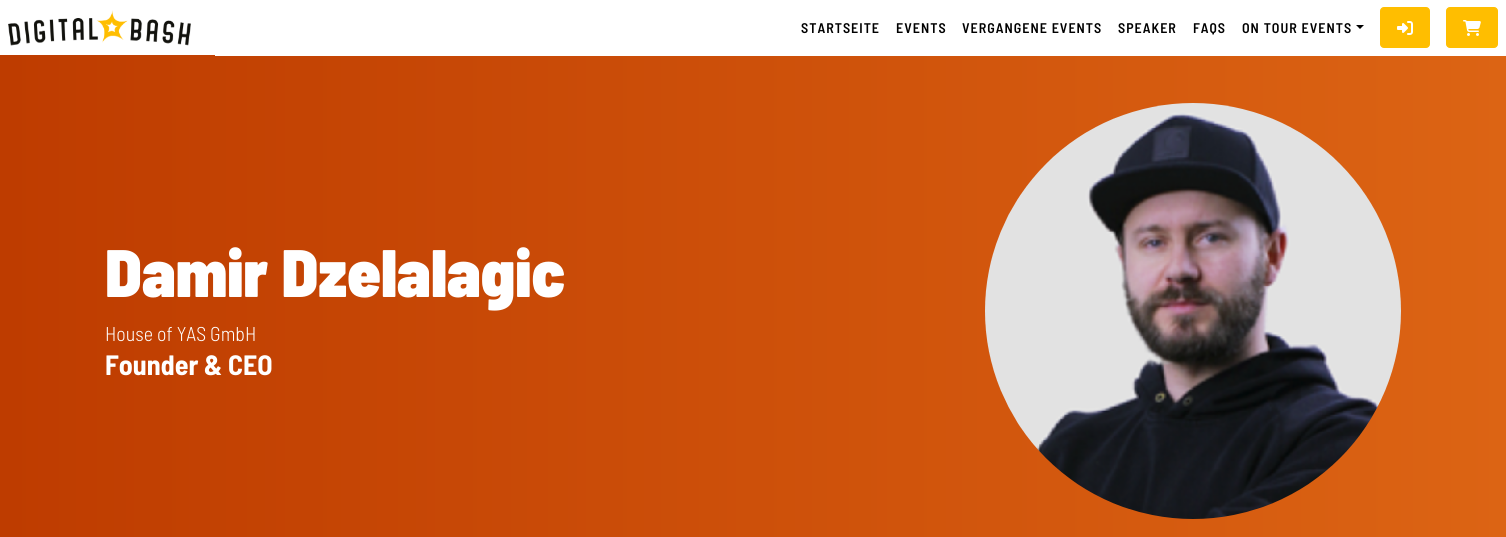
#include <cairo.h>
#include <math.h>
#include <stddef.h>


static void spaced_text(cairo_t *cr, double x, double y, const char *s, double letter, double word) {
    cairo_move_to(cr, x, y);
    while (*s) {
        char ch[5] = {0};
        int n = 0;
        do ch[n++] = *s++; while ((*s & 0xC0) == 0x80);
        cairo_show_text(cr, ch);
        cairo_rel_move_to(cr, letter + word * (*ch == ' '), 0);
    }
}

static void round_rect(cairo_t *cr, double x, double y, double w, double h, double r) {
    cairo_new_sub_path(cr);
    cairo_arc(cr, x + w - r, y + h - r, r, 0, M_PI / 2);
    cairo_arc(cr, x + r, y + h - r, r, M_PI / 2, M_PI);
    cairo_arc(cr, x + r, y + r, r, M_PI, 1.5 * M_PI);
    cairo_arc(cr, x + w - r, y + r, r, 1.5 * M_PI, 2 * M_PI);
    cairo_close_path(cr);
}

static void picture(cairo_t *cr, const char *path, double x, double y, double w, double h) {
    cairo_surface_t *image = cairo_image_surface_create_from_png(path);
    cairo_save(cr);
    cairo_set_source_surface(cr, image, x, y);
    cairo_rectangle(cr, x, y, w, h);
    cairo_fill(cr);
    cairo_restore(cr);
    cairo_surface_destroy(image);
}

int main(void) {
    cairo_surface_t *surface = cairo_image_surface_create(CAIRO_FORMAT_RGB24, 1506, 537);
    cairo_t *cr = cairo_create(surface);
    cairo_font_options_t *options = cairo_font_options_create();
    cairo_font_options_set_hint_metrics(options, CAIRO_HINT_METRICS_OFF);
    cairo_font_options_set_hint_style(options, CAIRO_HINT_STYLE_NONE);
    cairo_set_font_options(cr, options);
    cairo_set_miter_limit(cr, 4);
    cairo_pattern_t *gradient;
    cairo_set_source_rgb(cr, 1, 1, 1);
    cairo_paint(cr);
    picture(cr, "img1.png", 8, 10, 183, 36);
    gradient = cairo_pattern_create_linear(0, 311, 1506, 311);
    cairo_pattern_add_color_stop_rgba(gradient, 0, 0.745, 0.235, 0, 1);
    cairo_pattern_add_color_stop_rgba(gradient, 1, 0.863, 0.392, 0.078, 1);
    cairo_set_source(cr, gradient);
    cairo_pattern_destroy(gradient);
    cairo_rectangle(cr, 0, 55, 1506, 482);
    cairo_fill(cr);
    cairo_set_source_rgb(cr, 1, 1, 1);
    cairo_rectangle(cr, 215, 55, 1291, 1);
    cairo_fill(cr);
    cairo_select_font_face(cr, "Barlow Semi Condensed SemiBold", CAIRO_FONT_SLANT_NORMAL, CAIRO_FONT_WEIGHT_NORMAL);
    cairo_set_font_size(cr, 14);
    cairo_set_source_rgb(cr, 0, 0, 0);
    spaced_text(cr, 801, 33, "STARTSEITE", 1, 0);
    spaced_text(cr, 896, 33, "EVENTS", 1, 0);
    spaced_text(cr, 962, 33, "VERGANGENE EVENTS", 1, 0);
    spaced_text(cr, 1118, 33, "SPEAKER", 1, 0);
    spaced_text(cr, 1193, 33, "FAQS", 1, 0);
    spaced_text(cr, 1242, 33, "ON TOUR EVENTS", 1, 0);
    cairo_new_path(cr);
    cairo_move_to(cr, 1356, 25);
    cairo_line_to(cr, 1364, 25);
    cairo_line_to(cr, 1360, 29);
    cairo_close_path(cr);
    cairo_fill(cr);
    cairo_set_source_rgb(cr, 1, 0.745, 0);
    round_rect(cr, 1380.5, 7.5, 49, 40, 3.5);
    cairo_fill_preserve(cr);
    cairo_set_line_width(cr, 1);
    cairo_stroke(cr);
    picture(cr, "img2.png", 1397, 21, 16, 14);
    round_rect(cr, 1446.5, 7.5, 51, 40, 3.5);
    cairo_fill_preserve(cr);
    cairo_stroke(cr);
    picture(cr, "img3.png", 1463, 20, 18, 16);
    cairo_select_font_face(cr, "Barlow Semi Condensed Black", CAIRO_FONT_SLANT_NORMAL, CAIRO_FONT_WEIGHT_NORMAL);
    cairo_set_font_size(cr, 67);
    cairo_set_source_rgb(cr, 1, 1, 1);
    cairo_move_to(cr, 105, 297);
    cairo_show_text(cr, "Damir Dzelalagic");
    cairo_select_font_face(cr, "Barlow Semi Condensed Light", CAIRO_FONT_SLANT_NORMAL, CAIRO_FONT_WEIGHT_NORMAL);
    cairo_set_font_size(cr, 20);
    cairo_move_to(cr, 105, 341);
    cairo_show_text(cr, "House of YAS GmbH");
    cairo_select_font_face(cr, "Barlow Semi Condensed", CAIRO_FONT_SLANT_NORMAL, CAIRO_FONT_WEIGHT_BOLD);
    cairo_set_font_size(cr, 28);
    cairo_move_to(cr, 105, 375);
    cairo_show_text(cr, "Founder & CEO");
    picture(cr, "img4.png", 985, 103, 416, 416);
    cairo_surface_write_to_png(surface, "page.png");
    cairo_font_options_destroy(options);
    cairo_destroy(cr);
    cairo_surface_destroy(surface);
    return 0;
}
